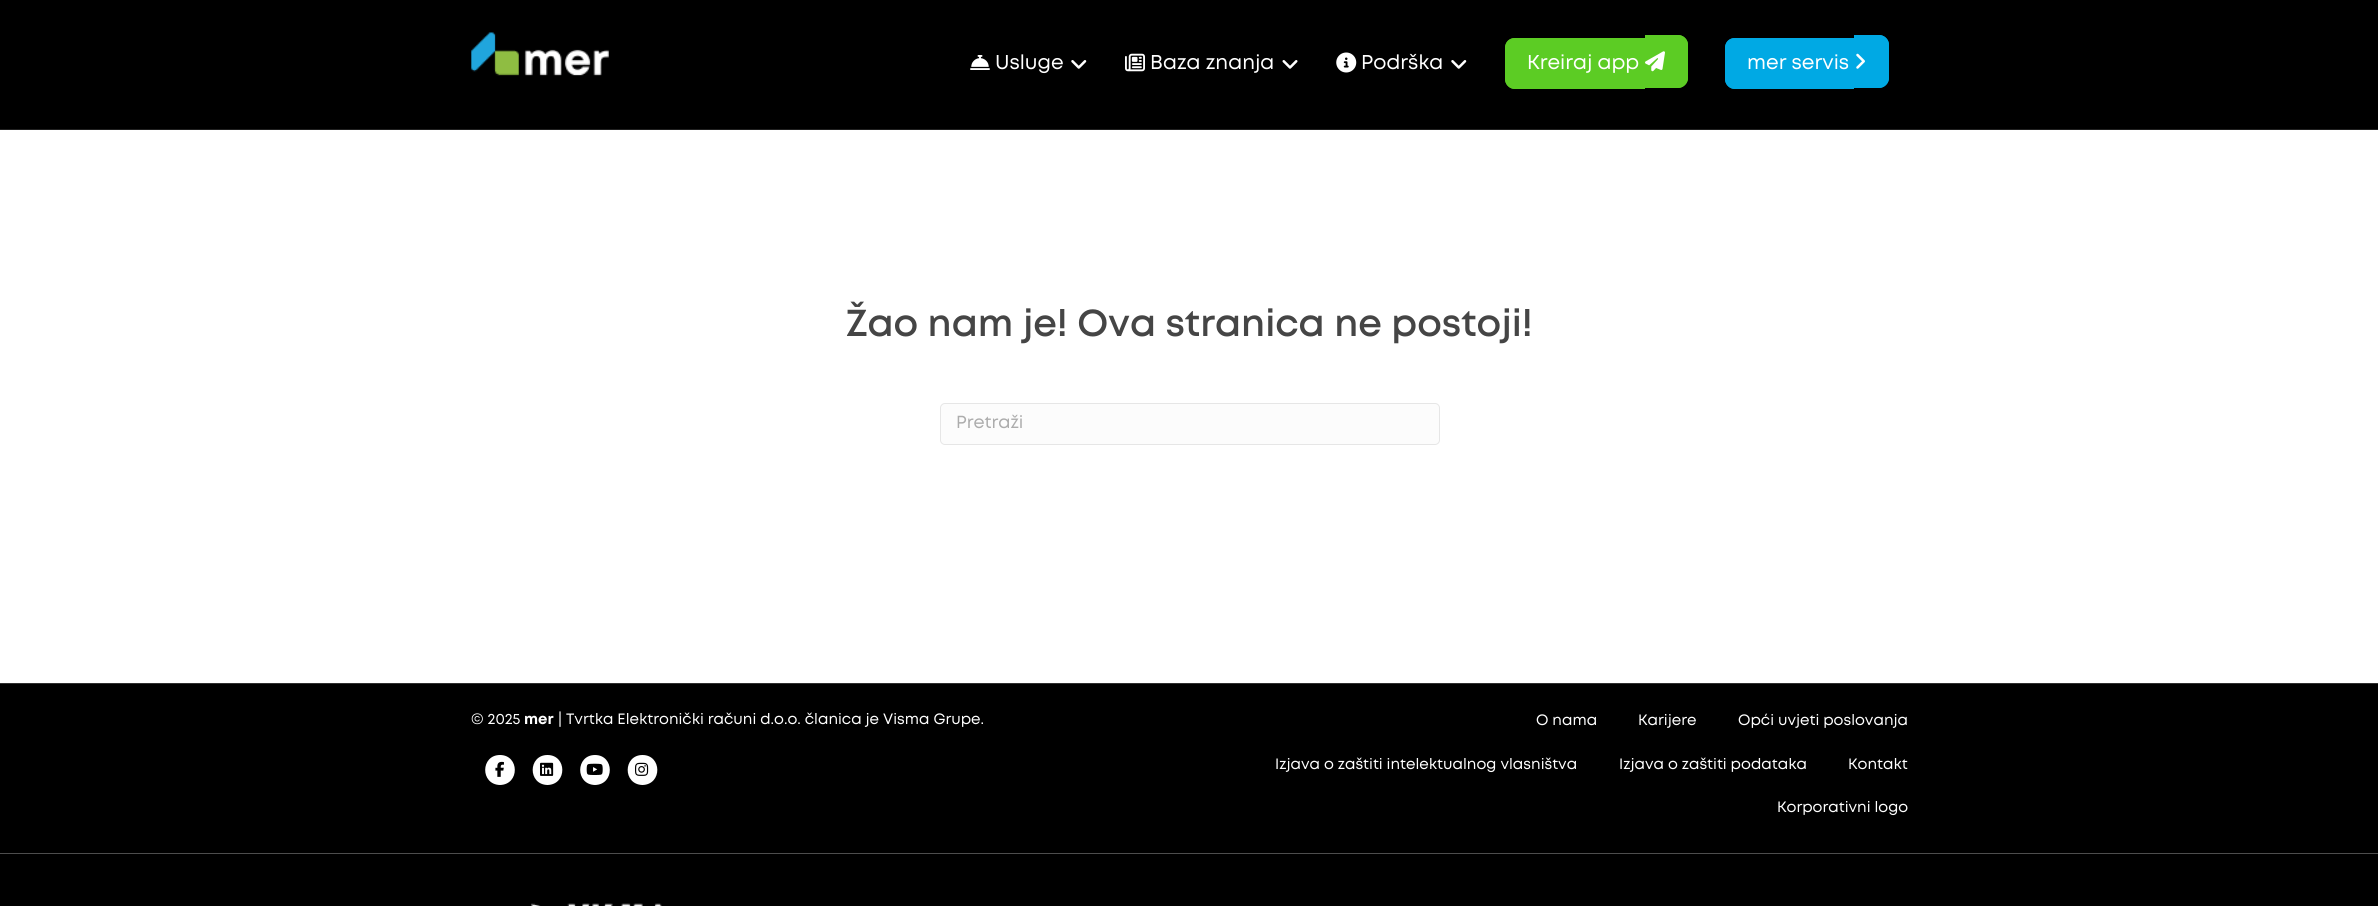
#include <cairo.h>
#include <math.h>
#include <stddef.h>


static void round_rect(cairo_t *cr, double x, double y, double w, double h, double r) {
    cairo_new_sub_path(cr);
    cairo_arc(cr, x + w - r, y + h - r, r, 0, M_PI / 2);
    cairo_arc(cr, x + r, y + h - r, r, M_PI / 2, M_PI);
    cairo_arc(cr, x + r, y + r, r, M_PI, 1.5 * M_PI);
    cairo_arc(cr, x + w - r, y + r, r, 1.5 * M_PI, 2 * M_PI);
    cairo_close_path(cr);
}

static void picture(cairo_t *cr, const char *path, double x, double y, double w, double h) {
    cairo_surface_t *image = cairo_image_surface_create_from_png(path);
    cairo_save(cr);
    cairo_set_source_surface(cr, image, x, y);
    cairo_rectangle(cr, x, y, w, h);
    cairo_fill(cr);
    cairo_restore(cr);
    cairo_surface_destroy(image);
}

int main(void) {
    cairo_surface_t *surface = cairo_image_surface_create(CAIRO_FORMAT_RGB24, 2378, 906);
    cairo_t *cr = cairo_create(surface);
    cairo_font_options_t *options = cairo_font_options_create();
    cairo_font_options_set_hint_metrics(options, CAIRO_HINT_METRICS_OFF);
    cairo_font_options_set_hint_style(options, CAIRO_HINT_STYLE_NONE);
    cairo_set_font_options(cr, options);
    cairo_set_miter_limit(cr, 4);
    cairo_set_source_rgb(cr, 1, 1, 1);
    cairo_paint(cr);
    cairo_set_source_rgb(cr, 0, 0, 0);
    cairo_rectangle(cr, 0, 0, 2378, 129);
    cairo_fill(cr);
    cairo_set_source_rgb(cr, 0.129, 0.129, 0.129);
    cairo_rectangle(cr, 0, 129, 2378, 1);
    cairo_fill(cr);
    picture(cr, "img1.png", 471, 32, 138, 44);
    picture(cr, "img2.png", 970, 55, 20, 15);
    cairo_select_font_face(cr, "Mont", CAIRO_FONT_SLANT_NORMAL, CAIRO_FONT_WEIGHT_NORMAL);
    cairo_set_font_size(cr, 20);
    cairo_set_source_rgb(cr, 1, 1, 1);
    cairo_move_to(cr, 995, 69);
    cairo_show_text(cr, "Usluge");
    picture(cr, "img3.png", 1071, 60, 16, 9);
    picture(cr, "img4.png", 1125, 53, 20, 19);
    cairo_move_to(cr, 1150, 69);
    cairo_show_text(cr, "Baza znanja");
    picture(cr, "img5.png", 1282, 60, 16, 9);
    picture(cr, "img6.png", 1336, 52, 21, 21);
    cairo_move_to(cr, 1361, 69);
    cairo_show_text(cr, "Podrška");
    picture(cr, "img3.png", 1451, 60, 16, 9);
    cairo_set_source_rgb(cr, 0.361, 0.8, 0.141);
    cairo_new_path(cr);
    cairo_move_to(cr, 1515, 38);
    cairo_line_to(cr, 1645, 38);
    cairo_line_to(cr, 1645, 89);
    cairo_line_to(cr, 1515, 89);
    cairo_curve_to(cr, 1509.5, 89, 1505, 84.5, 1505, 79);
    cairo_line_to(cr, 1505, 48);
    cairo_curve_to(cr, 1505, 42.5, 1509.5, 38, 1515, 38);
    cairo_close_path(cr);
    cairo_fill(cr);
    cairo_set_fill_rule(cr, CAIRO_FILL_RULE_EVEN_ODD);
    cairo_new_path(cr);
    cairo_move_to(cr, 1515, 38);
    cairo_line_to(cr, 1645, 38);
    cairo_line_to(cr, 1645, 89);
    cairo_line_to(cr, 1515, 89);
    cairo_curve_to(cr, 1509, 89, 1505, 84, 1505, 79);
    cairo_line_to(cr, 1505, 48);
    cairo_curve_to(cr, 1505, 42, 1509, 38, 1515, 38);
    cairo_close_path(cr);
    cairo_move_to(cr, 1515, 39);
    cairo_line_to(cr, 1645, 39);
    cairo_line_to(cr, 1645, 88);
    cairo_line_to(cr, 1515, 88);
    cairo_curve_to(cr, 1510, 88, 1506, 84, 1506, 79);
    cairo_line_to(cr, 1506, 48);
    cairo_curve_to(cr, 1506, 43, 1510, 39, 1515, 39);
    cairo_close_path(cr);
    cairo_fill(cr);
    cairo_new_path(cr);
    cairo_move_to(cr, 1645, 35);
    cairo_line_to(cr, 1678, 35);
    cairo_curve_to(cr, 1683.5, 35, 1688, 39.5, 1688, 45);
    cairo_line_to(cr, 1688, 78);
    cairo_curve_to(cr, 1688, 83.5, 1683.5, 88, 1678, 88);
    cairo_line_to(cr, 1645, 88);
    cairo_close_path(cr);
    cairo_fill(cr);
    cairo_new_path(cr);
    cairo_move_to(cr, 1645, 35);
    cairo_line_to(cr, 1678, 35);
    cairo_curve_to(cr, 1683, 35, 1688, 39, 1688, 45);
    cairo_line_to(cr, 1688, 78);
    cairo_curve_to(cr, 1688, 83, 1683, 88, 1678, 88);
    cairo_line_to(cr, 1645, 88);
    cairo_close_path(cr);
    cairo_move_to(cr, 1645, 36);
    cairo_line_to(cr, 1678, 36);
    cairo_curve_to(cr, 1682, 36, 1686, 40, 1686, 45);
    cairo_line_to(cr, 1686, 78);
    cairo_curve_to(cr, 1686, 82, 1682, 86, 1678, 86);
    cairo_line_to(cr, 1645, 86);
    cairo_close_path(cr);
    cairo_fill(cr);
    cairo_set_source_rgb(cr, 1, 1, 1);
    cairo_move_to(cr, 1527, 69);
    cairo_show_text(cr, "Kreiraj app");
    picture(cr, "img7.png", 1645, 51, 20, 21);
    cairo_set_source_rgb(cr, 0, 0.663, 0.894);
    cairo_new_path(cr);
    cairo_move_to(cr, 1735, 38);
    cairo_line_to(cr, 1854, 38);
    cairo_line_to(cr, 1854, 89);
    cairo_line_to(cr, 1735, 89);
    cairo_curve_to(cr, 1729.5, 89, 1725, 84.5, 1725, 79);
    cairo_line_to(cr, 1725, 48);
    cairo_curve_to(cr, 1725, 42.5, 1729.5, 38, 1735, 38);
    cairo_close_path(cr);
    cairo_fill(cr);
    cairo_new_path(cr);
    cairo_move_to(cr, 1735, 38);
    cairo_line_to(cr, 1854, 38);
    cairo_line_to(cr, 1854, 89);
    cairo_line_to(cr, 1735, 89);
    cairo_curve_to(cr, 1729, 89, 1725, 84, 1725, 79);
    cairo_line_to(cr, 1725, 48);
    cairo_curve_to(cr, 1725, 42, 1729, 38, 1735, 38);
    cairo_close_path(cr);
    cairo_move_to(cr, 1735, 39);
    cairo_line_to(cr, 1854, 39);
    cairo_line_to(cr, 1854, 88);
    cairo_line_to(cr, 1735, 88);
    cairo_curve_to(cr, 1730, 88, 1726, 84, 1726, 79);
    cairo_line_to(cr, 1726, 48);
    cairo_curve_to(cr, 1726, 43, 1730, 39, 1735, 39);
    cairo_close_path(cr);
    cairo_fill(cr);
    cairo_new_path(cr);
    cairo_move_to(cr, 1854, 35);
    cairo_line_to(cr, 1879, 35);
    cairo_curve_to(cr, 1884.5, 35, 1889, 39.5, 1889, 45);
    cairo_line_to(cr, 1889, 78);
    cairo_curve_to(cr, 1889, 83.5, 1884.5, 88, 1879, 88);
    cairo_line_to(cr, 1854, 88);
    cairo_close_path(cr);
    cairo_fill(cr);
    cairo_new_path(cr);
    cairo_move_to(cr, 1854, 35);
    cairo_line_to(cr, 1879, 35);
    cairo_curve_to(cr, 1884, 35, 1889, 39, 1889, 45);
    cairo_line_to(cr, 1889, 78);
    cairo_curve_to(cr, 1889, 83, 1884, 88, 1879, 88);
    cairo_line_to(cr, 1854, 88);
    cairo_close_path(cr);
    cairo_move_to(cr, 1854, 36);
    cairo_line_to(cr, 1879, 36);
    cairo_curve_to(cr, 1884, 36, 1888, 40, 1888, 45);
    cairo_line_to(cr, 1888, 78);
    cairo_curve_to(cr, 1888, 82, 1884, 86, 1879, 86);
    cairo_line_to(cr, 1854, 86);
    cairo_close_path(cr);
    cairo_fill(cr);
    cairo_set_source_rgb(cr, 1, 1, 1);
    cairo_move_to(cr, 1747, 69);
    cairo_show_text(cr, "mer servis");
    picture(cr, "img8.png", 1856, 53, 9, 16);
    cairo_select_font_face(cr, "Mont SemiBold", CAIRO_FONT_SLANT_NORMAL, CAIRO_FONT_WEIGHT_NORMAL);
    cairo_set_font_size(cr, 37.5);
    cairo_set_source_rgb(cr, 0.271, 0.271, 0.271);
    cairo_move_to(cr, 846, 336);
    cairo_show_text(cr, "Žao nam je! Ova stranica ne postoji!");
    cairo_set_source_rgb(cr, 0.988, 0.988, 0.988);
    round_rect(cr, 940.5, 403.5, 499, 41, 4.5);
    cairo_fill_preserve(cr);
    cairo_set_source_rgb(cr, 0.902, 0.902, 0.902);
    cairo_set_line_width(cr, 1);
    cairo_stroke(cr);
    cairo_select_font_face(cr, "Mont", CAIRO_FONT_SLANT_NORMAL, CAIRO_FONT_WEIGHT_NORMAL);
    cairo_set_font_size(cr, 17.5);
    cairo_set_source_rgb(cr, 0.675, 0.675, 0.675);
    cairo_move_to(cr, 956, 428);
    cairo_show_text(cr, "Pretraži");
    cairo_set_source_rgb(cr, 0, 0, 0);
    cairo_rectangle(cr, 0, 684, 2378, 169);
    cairo_fill(cr);
    cairo_set_source_rgb(cr, 0.188, 0.188, 0.188);
    cairo_rectangle(cr, 0, 683, 2378, 1);
    cairo_fill(cr);
    cairo_set_font_size(cr, 15);
    cairo_set_source_rgb(cr, 1, 1, 1);
    cairo_move_to(cr, 471, 724);
    cairo_show_text(cr, "© 2025");
    cairo_select_font_face(cr, "Mont", CAIRO_FONT_SLANT_NORMAL, CAIRO_FONT_WEIGHT_BOLD);
    cairo_move_to(cr, 524, 724);
    cairo_show_text(cr, "mer");
    cairo_select_font_face(cr, "Mont", CAIRO_FONT_SLANT_NORMAL, CAIRO_FONT_WEIGHT_NORMAL);
    cairo_move_to(cr, 558, 724);
    cairo_show_text(cr, "| Tvrtka Elektronički računi d.o.o. članica je Visma Grupe.");
    cairo_set_fill_rule(cr, CAIRO_FILL_RULE_WINDING);
    cairo_new_path(cr);
    cairo_move_to(cr, 500, 785);
    cairo_curve_to(cr, 520, 784.5, 519.5, 755, 500, 755);
    cairo_curve_to(cr, 480.5, 755, 480, 784.5, 500, 785);
    cairo_close_path(cr);
    cairo_fill(cr);
    picture(cr, "img9.png", 495, 761, 9, 16);
    cairo_new_path(cr);
    cairo_move_to(cr, 547.5, 785);
    cairo_curve_to(cr, 567.5, 784.5, 567, 755, 547.5, 755);
    cairo_curve_to(cr, 528, 755, 527.5, 784.5, 547.5, 785);
    cairo_close_path(cr);
    cairo_fill(cr);
    picture(cr, "img10.png", 540, 762, 14, 14);
    cairo_new_path(cr);
    cairo_move_to(cr, 595, 785);
    cairo_curve_to(cr, 615, 784.5, 614.5, 755, 595, 755);
    cairo_curve_to(cr, 575.5, 755, 575, 784.5, 595, 785);
    cairo_close_path(cr);
    cairo_fill(cr);
    picture(cr, "img11.png", 586, 763, 17, 12);
    cairo_new_path(cr);
    cairo_move_to(cr, 642.5, 785);
    cairo_curve_to(cr, 662.5, 784.5, 662, 755, 642.5, 755);
    cairo_curve_to(cr, 623, 755, 622.5, 784.5, 642.5, 785);
    cairo_close_path(cr);
    cairo_fill(cr);
    picture(cr, "img12.png", 635, 762, 14, 14);
    cairo_move_to(cr, 1536, 725);
    cairo_show_text(cr, "O nama");
    cairo_move_to(cr, 1638, 725);
    cairo_show_text(cr, "Karijere");
    cairo_move_to(cr, 1738, 725);
    cairo_show_text(cr, "Opći uvjeti poslovanja");
    cairo_move_to(cr, 1275, 769);
    cairo_show_text(cr, "Izjava o zaštiti intelektualnog vlasništva");
    cairo_move_to(cr, 1619, 769);
    cairo_show_text(cr, "Izjava o zaštiti podataka");
    cairo_move_to(cr, 1848, 769);
    cairo_show_text(cr, "Kontakt");
    cairo_move_to(cr, 1777, 812);
    cairo_show_text(cr, "Korporativni logo");
    cairo_set_source_rgb(cr, 0, 0, 0);
    cairo_rectangle(cr, 0, 854, 2378, 52);
    cairo_fill(cr);
    cairo_set_source_rgb(cr, 0.302, 0.302, 0.302);
    cairo_rectangle(cr, 0, 853, 2378, 1);
    cairo_fill(cr);
    picture(cr, "img13.png", 531, 903, 131, 3);
    cairo_surface_write_to_png(surface, "page.png");
    cairo_font_options_destroy(options);
    cairo_destroy(cr);
    cairo_surface_destroy(surface);
    return 0;
}
